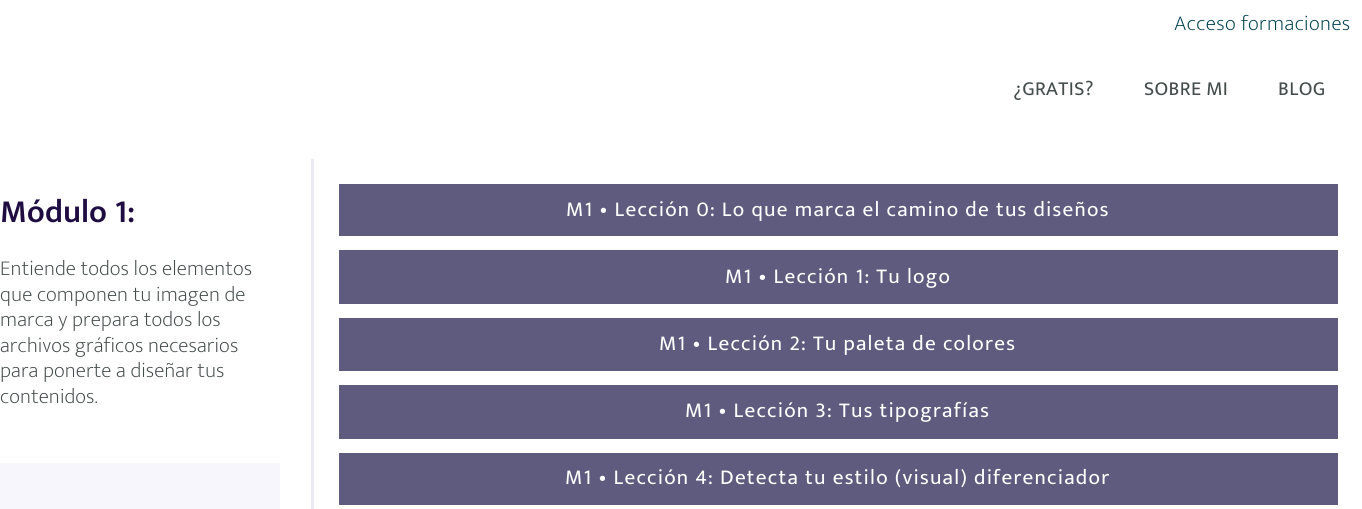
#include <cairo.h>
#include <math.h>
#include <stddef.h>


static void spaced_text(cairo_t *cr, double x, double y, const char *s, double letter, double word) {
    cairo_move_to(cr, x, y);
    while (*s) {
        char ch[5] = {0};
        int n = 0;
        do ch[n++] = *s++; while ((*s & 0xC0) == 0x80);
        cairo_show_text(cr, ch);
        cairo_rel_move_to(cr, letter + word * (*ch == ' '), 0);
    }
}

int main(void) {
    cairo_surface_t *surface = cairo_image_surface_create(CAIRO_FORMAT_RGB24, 1362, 509);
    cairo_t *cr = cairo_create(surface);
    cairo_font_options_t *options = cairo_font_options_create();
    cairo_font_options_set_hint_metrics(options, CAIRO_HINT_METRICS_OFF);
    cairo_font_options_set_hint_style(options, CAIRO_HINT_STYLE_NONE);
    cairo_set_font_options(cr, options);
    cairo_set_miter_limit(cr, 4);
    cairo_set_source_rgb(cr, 1, 1, 1);
    cairo_paint(cr);
    cairo_select_font_face(cr, "Mukta Light", CAIRO_FONT_SLANT_NORMAL, CAIRO_FONT_WEIGHT_NORMAL);
    cairo_set_font_size(cr, 21.25);
    cairo_set_source_rgb(cr, 0.004, 0.259, 0.306);
    spaced_text(cr, 1174, 30, "Acceso formaciones", 0.4, 0);
    cairo_select_font_face(cr, "Mukta", CAIRO_FONT_SLANT_NORMAL, CAIRO_FONT_WEIGHT_NORMAL);
    cairo_set_font_size(cr, 20);
    cairo_set_source_rgb(cr, 0.271, 0.298, 0.298);
    spaced_text(cr, 1013, 95, "¿GRATIS?", 0.4, 0);
    spaced_text(cr, 1144, 95, "SOBRE MI", 0.4, 0);
    spaced_text(cr, 1278, 95, "BLOG", 0.4, 0);
    cairo_select_font_face(cr, "Mukta SemiBold", CAIRO_FONT_SLANT_NORMAL, CAIRO_FONT_WEIGHT_NORMAL);
    cairo_set_font_size(cr, 32.5);
    cairo_set_source_rgb(cr, 0.122, 0.051, 0.259);
    cairo_move_to(cr, 0, 222);
    cairo_show_text(cr, "Módulo 1:");
    cairo_select_font_face(cr, "Mukta Light", CAIRO_FONT_SLANT_NORMAL, CAIRO_FONT_WEIGHT_NORMAL);
    cairo_set_font_size(cr, 21.25);
    cairo_set_source_rgb(cr, 0.271, 0.298, 0.298);
    spaced_text(cr, 0, 275, "Entiende todos los elementos", 0.1, 0);
    spaced_text(cr, 0, 301, "que componen tu imagen de", 0.1, 0);
    spaced_text(cr, 0, 326, "marca y prepara todos los", 0.1, 0);
    spaced_text(cr, 0, 352, "archivos gráficos necesarios", 0.1, 0);
    spaced_text(cr, 0, 377, "para ponerte a diseñar tus", 0.1, 0);
    spaced_text(cr, 0, 403, "contenidos.", 0.1, 0);
    cairo_set_source_rgb(cr, 0.965, 0.961, 0.988);
    cairo_rectangle(cr, 0, 463, 280, 46);
    cairo_fill(cr);
    cairo_set_source_rgb(cr, 0.925, 0.918, 0.949);
    cairo_rectangle(cr, 311, 159, 3, 350);
    cairo_fill(cr);
    cairo_set_source_rgb(cr, 0.369, 0.357, 0.498);
    cairo_rectangle(cr, 339, 184, 999, 52);
    cairo_fill(cr);
    cairo_select_font_face(cr, "Mukta", CAIRO_FONT_SLANT_NORMAL, CAIRO_FONT_WEIGHT_NORMAL);
    cairo_set_source_rgb(cr, 1, 1, 1);
    spaced_text(cr, 566, 216, "M1 • Lección 0: Lo que marca el camino de tus diseños", 1.25, 0);
    cairo_set_source_rgb(cr, 0.369, 0.357, 0.498);
    cairo_rectangle(cr, 339, 250, 999, 54);
    cairo_fill(cr);
    cairo_set_source_rgb(cr, 1, 1, 1);
    spaced_text(cr, 725, 283, "M1 • Lección 1: Tu logo", 1.25, 0);
    cairo_set_source_rgb(cr, 0.369, 0.357, 0.498);
    cairo_rectangle(cr, 339, 318, 999, 53);
    cairo_fill(cr);
    cairo_set_source_rgb(cr, 1, 1, 1);
    spaced_text(cr, 659, 350, "M1 • Lección 2: Tu paleta de colores", 1.25, 0);
    cairo_set_source_rgb(cr, 0.369, 0.357, 0.498);
    cairo_rectangle(cr, 339, 385, 999, 54);
    cairo_fill(cr);
    cairo_set_source_rgb(cr, 1, 1, 1);
    spaced_text(cr, 685, 417, "M1 • Lección 3: Tus tipografías", 1.25, 0);
    cairo_set_source_rgb(cr, 0.369, 0.357, 0.498);
    cairo_rectangle(cr, 339, 453, 999, 52);
    cairo_fill(cr);
    cairo_set_source_rgb(cr, 1, 1, 1);
    spaced_text(cr, 565, 484, "M1 • Lección 4: Detecta tu estilo (visual) diferenciador", 1.25, 0);
    cairo_surface_write_to_png(surface, "page.png");
    cairo_font_options_destroy(options);
    cairo_destroy(cr);
    cairo_surface_destroy(surface);
    return 0;
}
